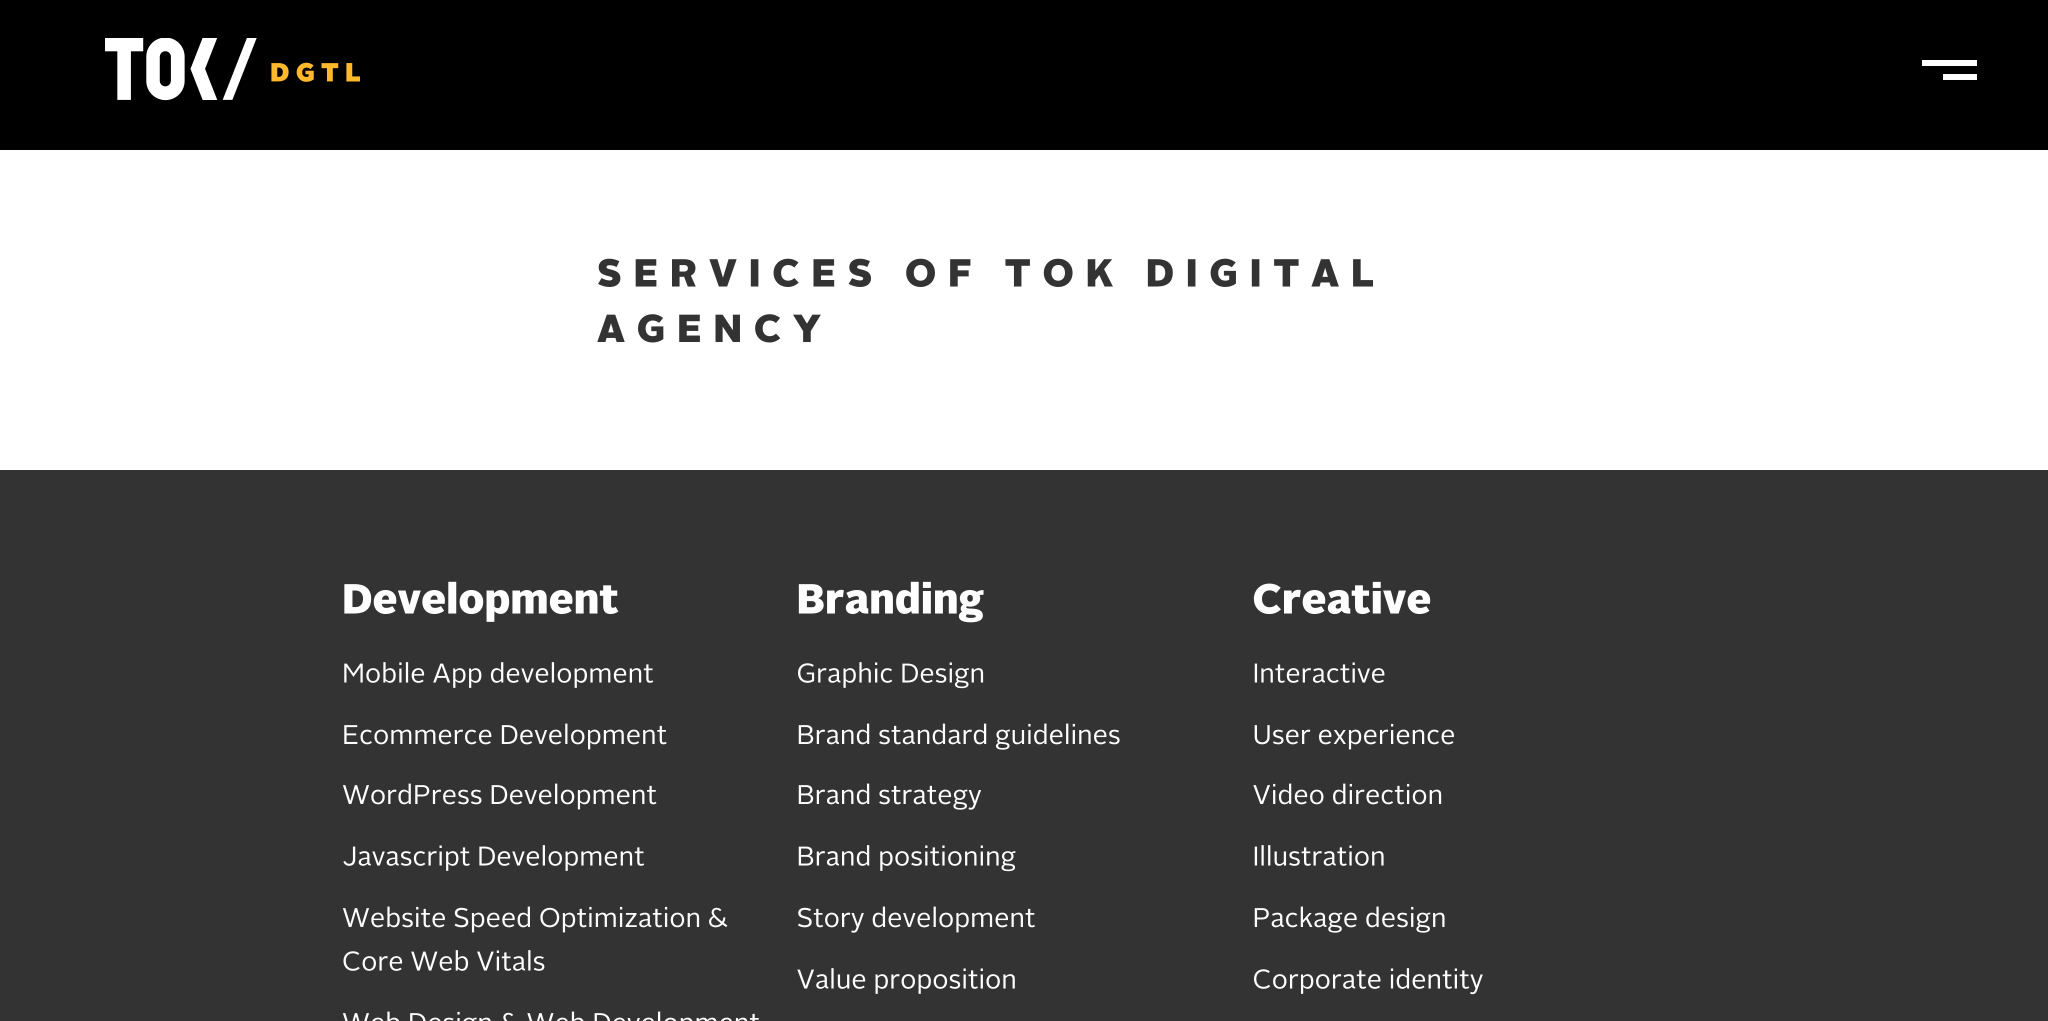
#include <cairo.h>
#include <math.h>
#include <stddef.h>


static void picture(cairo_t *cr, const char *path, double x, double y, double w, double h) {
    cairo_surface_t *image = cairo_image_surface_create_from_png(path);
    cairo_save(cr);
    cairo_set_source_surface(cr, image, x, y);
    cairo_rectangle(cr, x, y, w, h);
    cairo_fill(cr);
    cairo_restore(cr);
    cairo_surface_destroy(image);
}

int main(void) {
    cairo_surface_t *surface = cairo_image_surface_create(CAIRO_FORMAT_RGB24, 2048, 1021);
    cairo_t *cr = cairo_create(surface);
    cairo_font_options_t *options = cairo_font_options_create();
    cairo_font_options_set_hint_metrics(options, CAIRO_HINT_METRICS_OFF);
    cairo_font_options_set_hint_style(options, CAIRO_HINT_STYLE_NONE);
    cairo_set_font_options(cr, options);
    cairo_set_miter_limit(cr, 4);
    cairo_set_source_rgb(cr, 1, 1, 1);
    cairo_paint(cr);
    cairo_set_source_rgb(cr, 0, 0, 0);
    cairo_rectangle(cr, 0, 0, 2048, 150);
    cairo_fill(cr);
    picture(cr, "img1.png", 105, 38, 255, 63);
    cairo_set_source_rgb(cr, 1, 1, 1);
    cairo_rectangle(cr, 1922, 60, 55, 6);
    cairo_fill(cr);
    cairo_rectangle(cr, 1943, 74, 34, 6);
    cairo_fill(cr);
    picture(cr, "img2.png", 598, 258, 776, 29);
    picture(cr, "img3.png", 597, 314, 224, 29);
    cairo_set_source_rgb(cr, 0.2, 0.2, 0.2);
    cairo_rectangle(cr, 0, 470, 2048, 551);
    cairo_fill(cr);
    picture(cr, "img4.png", 344, 581, 275, 41);
    picture(cr, "img5.png", 344, 662, 310, 26);
    picture(cr, "img6.png", 344, 723, 323, 27);
    picture(cr, "img7.png", 342, 783, 315, 27);
    picture(cr, "img8.png", 343, 845, 302, 26);
    picture(cr, "img9.png", 342, 906, 386, 27);
    picture(cr, "img10.png", 343, 950, 202, 21);
    picture(cr, "img11.png", 342, 1011, 417, 10);
    picture(cr, "img12.png", 798, 581, 186, 42);
    picture(cr, "img13.png", 798, 662, 186, 27);
    picture(cr, "img14.png", 798, 723, 322, 27);
    picture(cr, "img15.png", 798, 783, 183, 27);
    picture(cr, "img16.png", 798, 845, 218, 27);
    picture(cr, "img17.png", 798, 906, 237, 27);
    picture(cr, "img18.png", 797, 968, 218, 26);
    picture(cr, "img19.png", 1253, 581, 178, 34);
    picture(cr, "img20.png", 1254, 662, 131, 21);
    picture(cr, "img21.png", 1254, 723, 200, 27);
    picture(cr, "img22.png", 1253, 783, 189, 22);
    picture(cr, "img23.png", 1254, 845, 130, 21);
    picture(cr, "img24.png", 1254, 906, 191, 27);
    picture(cr, "img25.png", 1254, 968, 229, 27);
    cairo_surface_write_to_png(surface, "page.png");
    cairo_font_options_destroy(options);
    cairo_destroy(cr);
    cairo_surface_destroy(surface);
    return 0;
}
